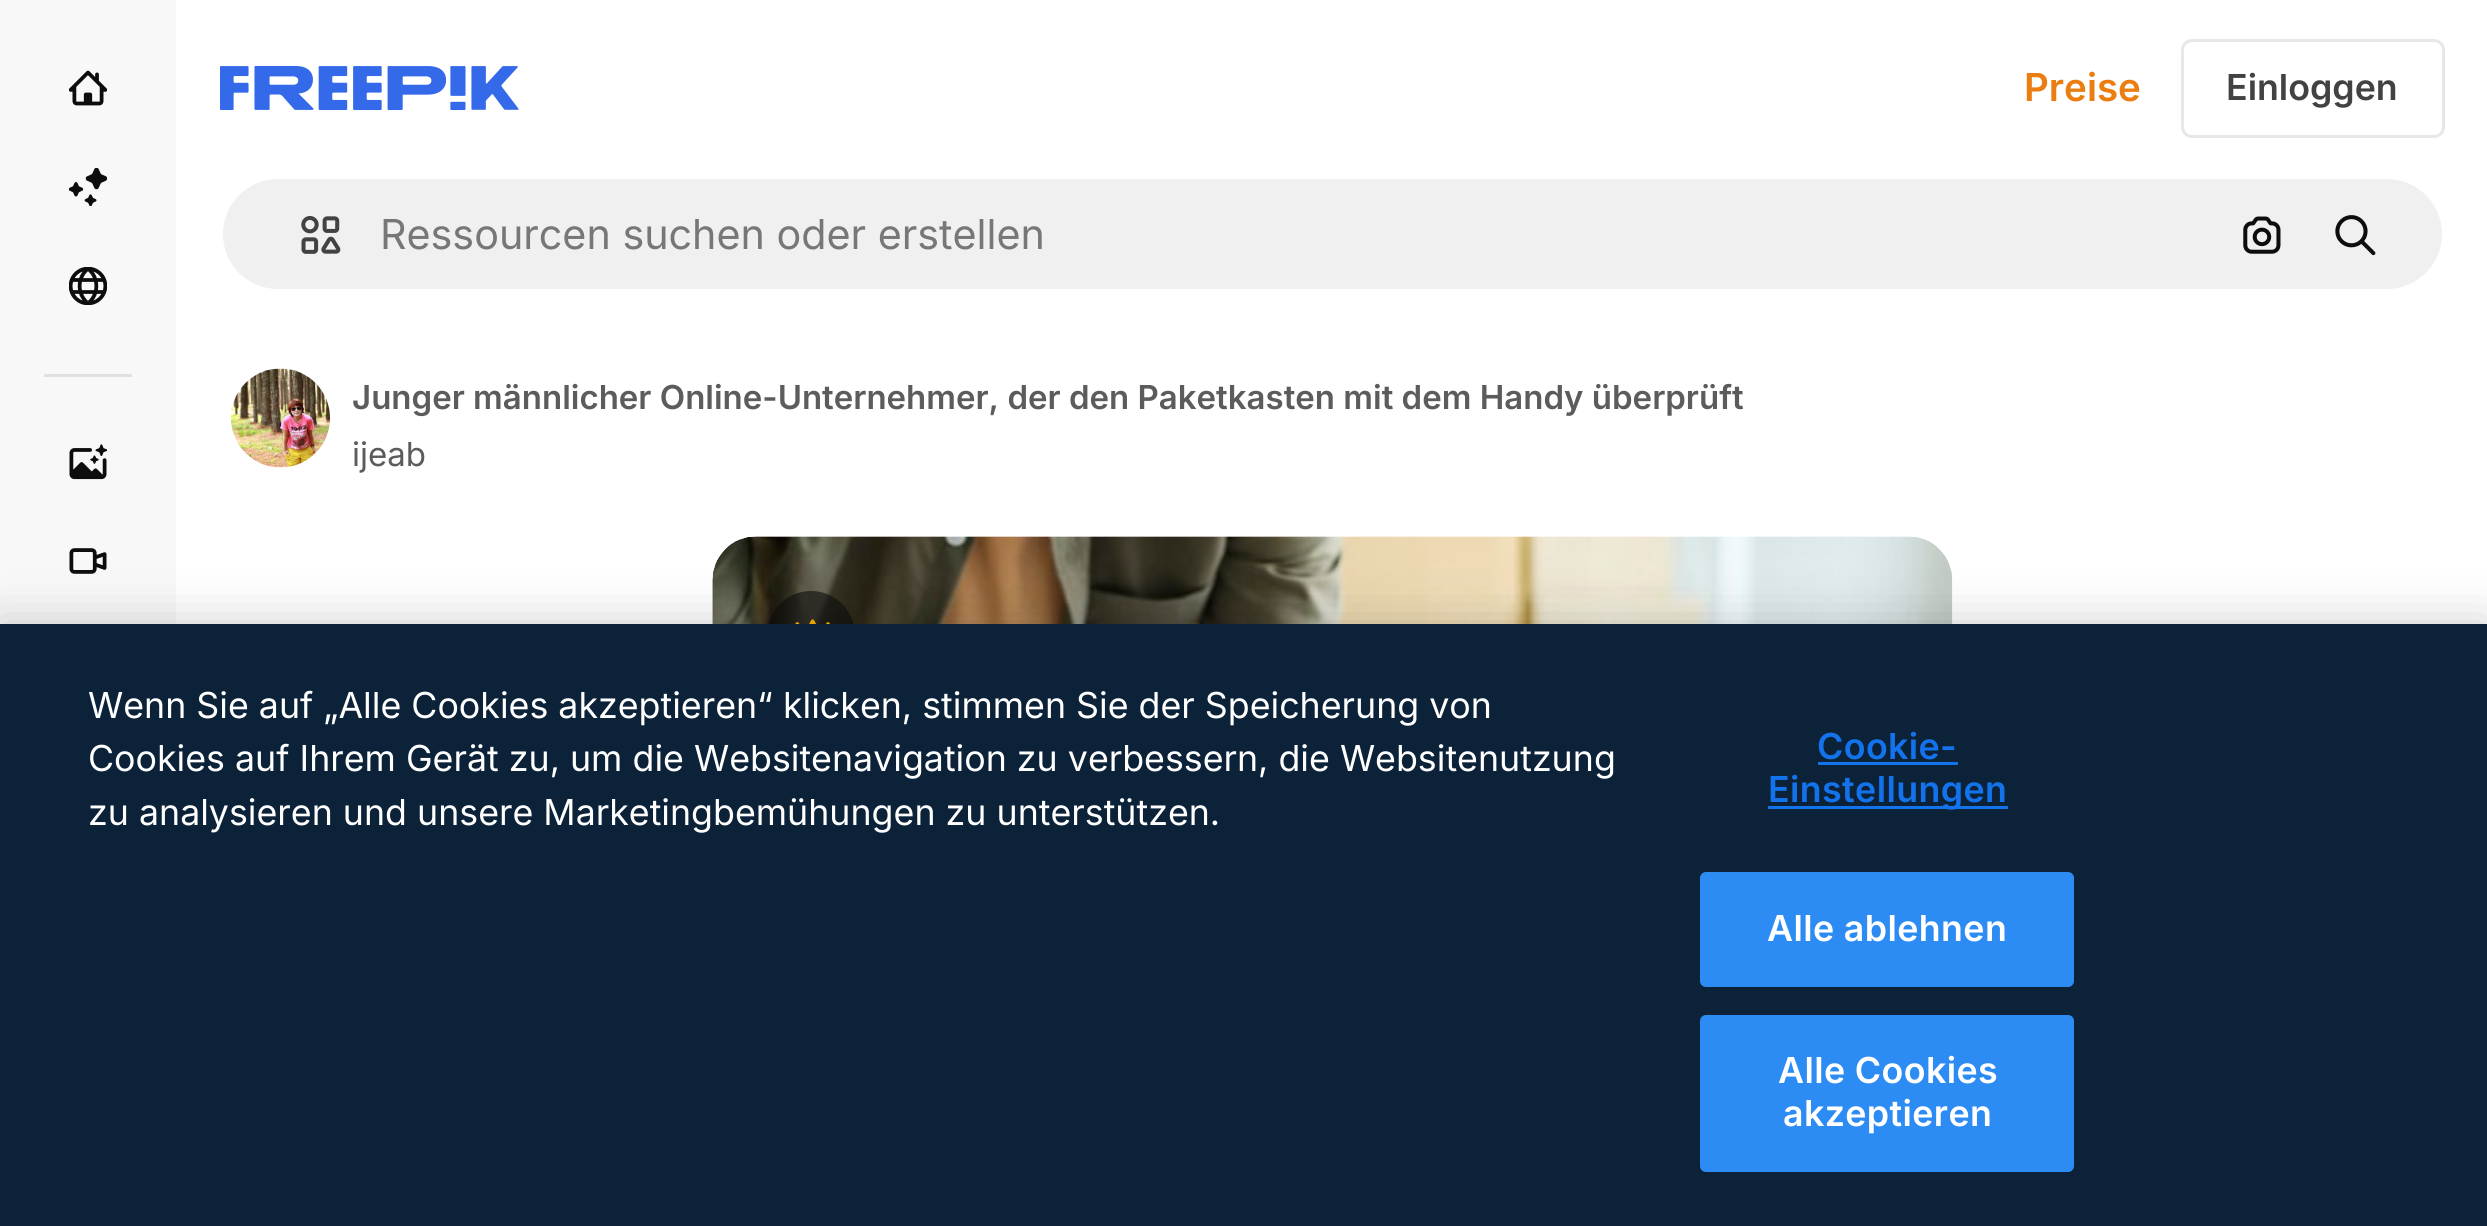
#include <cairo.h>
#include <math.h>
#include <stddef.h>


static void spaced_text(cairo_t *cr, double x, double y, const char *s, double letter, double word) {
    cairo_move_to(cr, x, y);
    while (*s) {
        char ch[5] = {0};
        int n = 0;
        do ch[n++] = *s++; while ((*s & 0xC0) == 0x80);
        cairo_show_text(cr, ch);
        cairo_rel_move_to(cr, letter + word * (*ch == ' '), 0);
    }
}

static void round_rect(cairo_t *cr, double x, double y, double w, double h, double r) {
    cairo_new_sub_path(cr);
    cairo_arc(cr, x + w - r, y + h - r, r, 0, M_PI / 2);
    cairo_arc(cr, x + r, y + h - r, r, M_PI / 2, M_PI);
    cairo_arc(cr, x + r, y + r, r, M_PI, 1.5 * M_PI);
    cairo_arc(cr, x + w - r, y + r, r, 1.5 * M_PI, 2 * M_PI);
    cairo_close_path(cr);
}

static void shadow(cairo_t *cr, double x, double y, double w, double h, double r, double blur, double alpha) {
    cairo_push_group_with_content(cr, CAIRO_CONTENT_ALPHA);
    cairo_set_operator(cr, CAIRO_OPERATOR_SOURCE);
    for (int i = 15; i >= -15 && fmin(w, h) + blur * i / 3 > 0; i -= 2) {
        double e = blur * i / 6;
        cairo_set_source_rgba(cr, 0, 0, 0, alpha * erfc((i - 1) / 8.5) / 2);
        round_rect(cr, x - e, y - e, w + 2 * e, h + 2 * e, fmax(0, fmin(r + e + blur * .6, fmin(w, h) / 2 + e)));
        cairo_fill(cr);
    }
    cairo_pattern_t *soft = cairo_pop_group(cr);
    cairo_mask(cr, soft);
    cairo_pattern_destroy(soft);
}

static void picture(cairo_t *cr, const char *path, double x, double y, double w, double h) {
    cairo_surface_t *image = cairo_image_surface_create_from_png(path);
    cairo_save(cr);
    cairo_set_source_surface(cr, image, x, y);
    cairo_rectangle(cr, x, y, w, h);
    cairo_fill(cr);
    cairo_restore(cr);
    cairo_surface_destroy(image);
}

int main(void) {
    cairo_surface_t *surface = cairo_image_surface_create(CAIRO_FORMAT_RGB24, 2487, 1226);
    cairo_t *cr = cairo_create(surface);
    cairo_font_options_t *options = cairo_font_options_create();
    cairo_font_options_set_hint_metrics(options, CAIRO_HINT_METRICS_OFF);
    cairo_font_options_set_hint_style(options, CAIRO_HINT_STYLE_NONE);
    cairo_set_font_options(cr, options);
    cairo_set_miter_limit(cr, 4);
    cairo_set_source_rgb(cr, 1, 1, 1);
    cairo_paint(cr);
    cairo_set_source_rgb(cr, 0.969, 0.969, 0.969);
    cairo_rectangle(cr, 0, 0, 176, 624);
    cairo_fill(cr);
    picture(cr, "img1.png", 69, 70, 38, 36);
    picture(cr, "img2.png", 69, 168, 38, 38);
    picture(cr, "img3.png", 69, 267, 38, 38);
    cairo_set_source_rgb(cr, 0.878, 0.878, 0.878);
    cairo_rectangle(cr, 44, 374, 88, 3);
    cairo_fill(cr);
    picture(cr, "img4.png", 69, 444, 38, 36);
    picture(cr, "img5.png", 69, 548, 38, 26);
    picture(cr, "img6.png", 220, 66, 299, 44);
    cairo_select_font_face(cr, "Inter SemiBold", CAIRO_FONT_SLANT_NORMAL, CAIRO_FONT_WEIGHT_NORMAL);
    cairo_set_font_size(cr, 38.5);
    cairo_set_source_rgb(cr, 0.918, 0.494, 0.067);
    cairo_move_to(cr, 2024, 101);
    cairo_show_text(cr, "Preise");
    round_rect(cr, 2182.5, 40.5, 261, 96, 9.5);
    cairo_set_source_rgb(cr, 0.906, 0.906, 0.906);
    cairo_set_line_width(cr, 3);
    cairo_stroke(cr);
    cairo_set_font_size(cr, 35.75);
    cairo_set_source_rgb(cr, 0.259, 0.259, 0.259);
    cairo_move_to(cr, 2226, 100);
    cairo_show_text(cr, "Einloggen");
    cairo_set_source_rgb(cr, 0.941, 0.941, 0.941);
    round_rect(cr, 221.5, 177.5, 2222, 113, 56.5);
    cairo_fill_preserve(cr);
    cairo_set_source_rgb(cr, 1, 1, 1);
    cairo_stroke(cr);
    picture(cr, "img7.png", 301, 216, 40, 38);
    cairo_select_font_face(cr, "Inter", CAIRO_FONT_SLANT_NORMAL, CAIRO_FONT_WEIGHT_NORMAL);
    cairo_set_font_size(cr, 41.25);
    cairo_set_source_rgb(cr, 0.467, 0.467, 0.467);
    cairo_move_to(cr, 380, 249);
    cairo_show_text(cr, "Ressourcen suchen oder erstellen");
    picture(cr, "img8.png", 2243, 216, 38, 38);
    picture(cr, "img9.png", 2335, 215, 41, 41);
    picture(cr, "img10.png", 231, 368, 99, 100);
    cairo_select_font_face(cr, "Inter SemiBold", CAIRO_FONT_SLANT_NORMAL, CAIRO_FONT_WEIGHT_NORMAL);
    cairo_set_font_size(cr, 33);
    cairo_set_source_rgb(cr, 0.361, 0.361, 0.361);
    cairo_move_to(cr, 352, 409);
    cairo_show_text(cr, "Junger männlicher Online-Unternehmer, der den Paketkasten mit dem Handy überprüft");
    cairo_select_font_face(cr, "Inter", CAIRO_FONT_SLANT_NORMAL, CAIRO_FONT_WEIGHT_NORMAL);
    cairo_move_to(cr, 352, 466);
    cairo_show_text(cr, "ijeab");
    picture(cr, "img11.png", 712, 536, 1241, 88);
    cairo_set_source_rgba(cr, 0.051, 0.051, 0.051, 0.6);
    cairo_arc(cr, 811, 635, 44, 0, 2 * M_PI);
    cairo_fill(cr);
    picture(cr, "img12.png", 795, 619, 35, 5);
    cairo_set_source_rgb(cr, 0, 0, 0);
    shadow(cr, 0, 624, 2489, 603, 0, 25, 0.2);
    cairo_set_source_rgb(cr, 0.043, 0.133, 0.224);
    cairo_rectangle(cr, 0, 624, 2487, 602);
    cairo_fill(cr);
    cairo_set_font_size(cr, 35.75);
    cairo_set_source_rgb(cr, 1, 1, 1);
    cairo_move_to(cr, 88, 718);
    cairo_show_text(cr, "Wenn Sie auf „Alle Cookies akzeptieren“ klicken, stimmen Sie der Speicherung von");
    cairo_move_to(cr, 88, 771);
    cairo_show_text(cr, "Cookies auf Ihrem Gerät zu, um die Websitenavigation zu verbessern, die Websitenutzung");
    cairo_move_to(cr, 88, 825);
    cairo_show_text(cr, "zu analysieren und unsere Marketingbemühungen zu unterstützen.");
    cairo_select_font_face(cr, "Inter SemiBold", CAIRO_FONT_SLANT_NORMAL, CAIRO_FONT_WEIGHT_NORMAL);
    cairo_set_source_rgb(cr, 0.071, 0.451, 0.922);
    spaced_text(cr, 1817, 759, "Cookie-", 0.4, 0);
    cairo_rectangle(cr, 1818, 762, 140, 3);
    cairo_fill(cr);
    cairo_rectangle(cr, 1768, 806, 240, 3);
    cairo_fill(cr);
    spaced_text(cr, 1768, 802, "Einstellungen", 0.4, 0);
    cairo_set_source_rgb(cr, 0.173, 0.549, 0.957);
    round_rect(cr, 1701.5, 873.5, 371, 112, 4.5);
    cairo_fill_preserve(cr);
    cairo_stroke(cr);
    cairo_set_source_rgb(cr, 1, 1, 1);
    spaced_text(cr, 1767, 941, "Alle ablehnen", 0.4, 0);
    cairo_set_source_rgb(cr, 0.173, 0.549, 0.957);
    round_rect(cr, 1701.5, 1016.5, 371, 154, 4.5);
    cairo_fill_preserve(cr);
    cairo_stroke(cr);
    cairo_set_source_rgb(cr, 1, 1, 1);
    spaced_text(cr, 1778, 1083, "Alle Cookies", 0.4, 0);
    spaced_text(cr, 1783, 1126, "akzeptieren", 0.4, 0);
    cairo_surface_write_to_png(surface, "page.png");
    cairo_font_options_destroy(options);
    cairo_destroy(cr);
    cairo_surface_destroy(surface);
    return 0;
}
